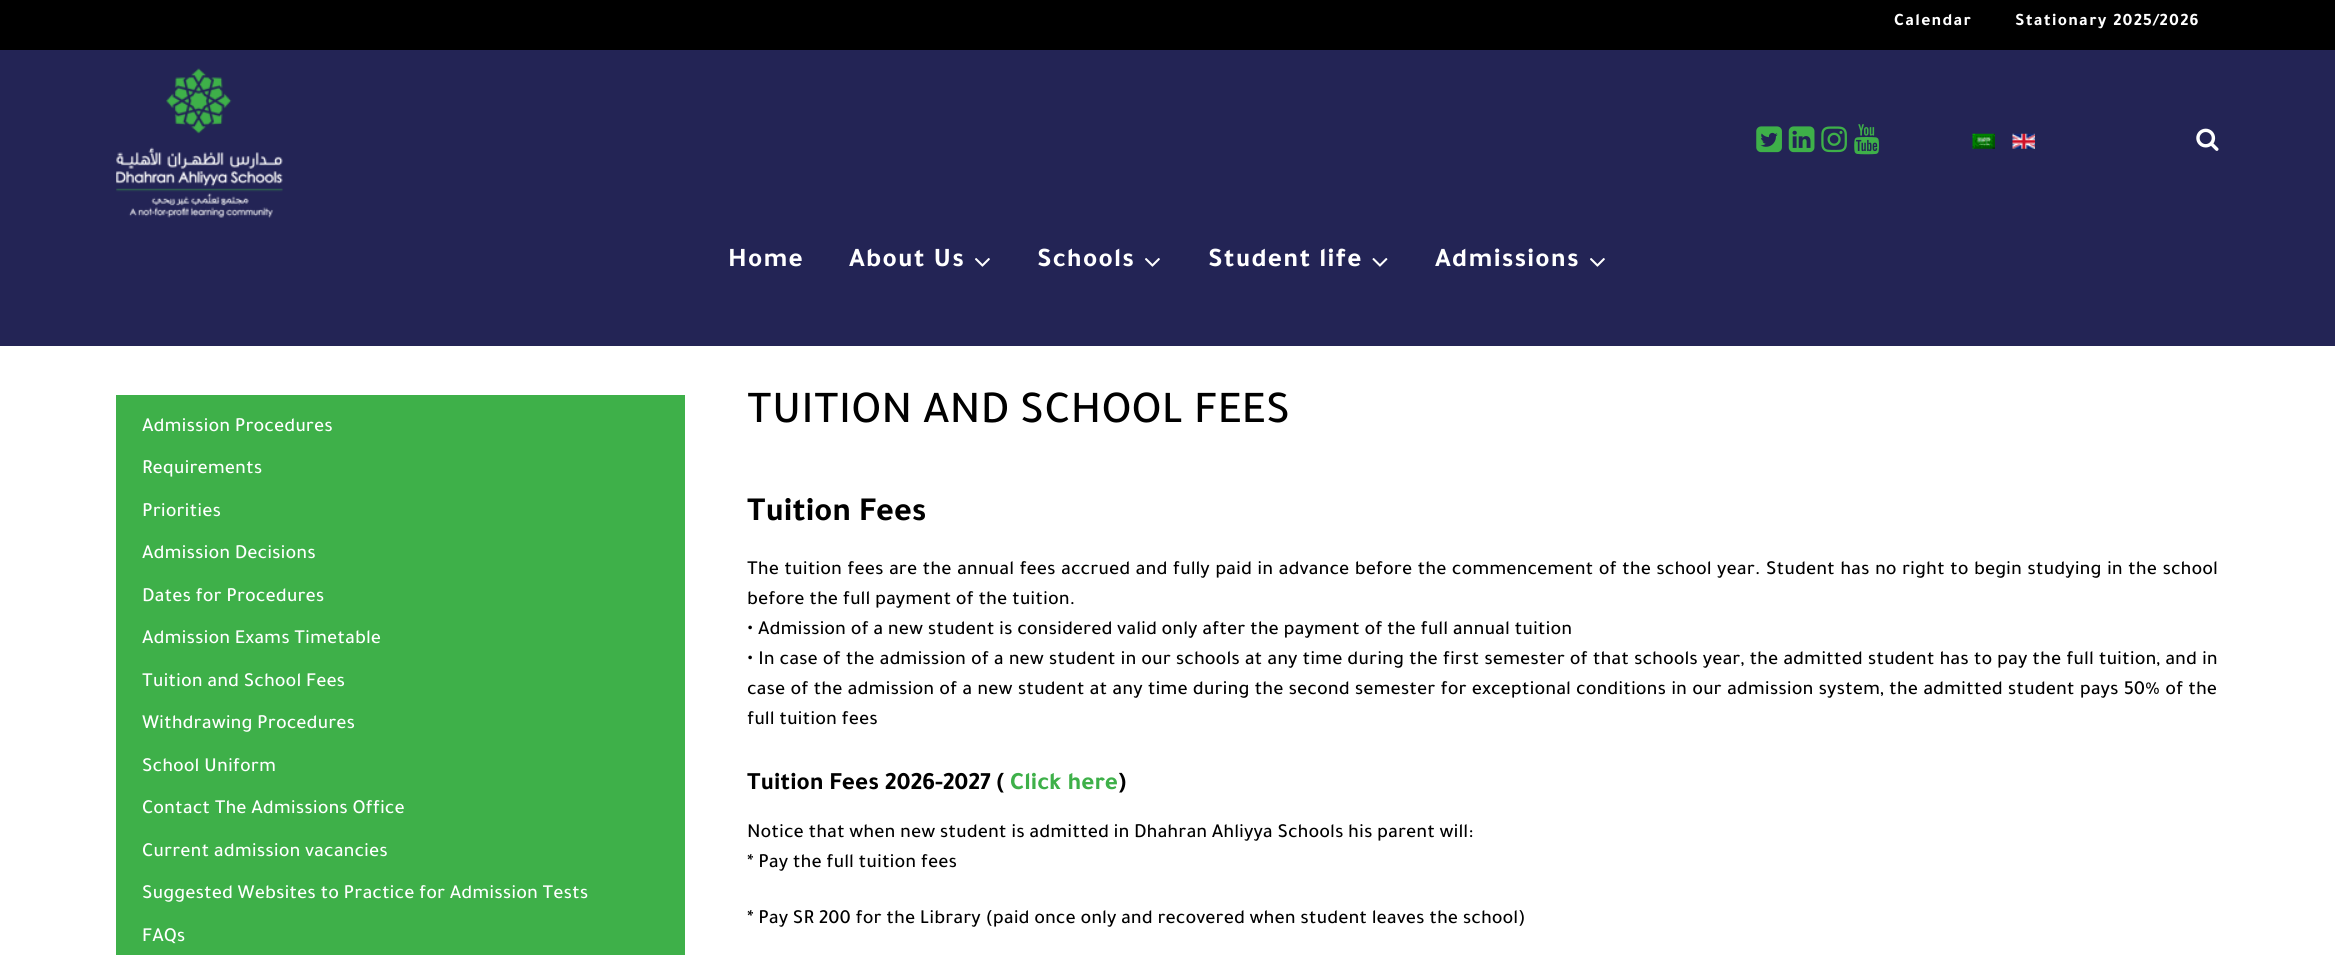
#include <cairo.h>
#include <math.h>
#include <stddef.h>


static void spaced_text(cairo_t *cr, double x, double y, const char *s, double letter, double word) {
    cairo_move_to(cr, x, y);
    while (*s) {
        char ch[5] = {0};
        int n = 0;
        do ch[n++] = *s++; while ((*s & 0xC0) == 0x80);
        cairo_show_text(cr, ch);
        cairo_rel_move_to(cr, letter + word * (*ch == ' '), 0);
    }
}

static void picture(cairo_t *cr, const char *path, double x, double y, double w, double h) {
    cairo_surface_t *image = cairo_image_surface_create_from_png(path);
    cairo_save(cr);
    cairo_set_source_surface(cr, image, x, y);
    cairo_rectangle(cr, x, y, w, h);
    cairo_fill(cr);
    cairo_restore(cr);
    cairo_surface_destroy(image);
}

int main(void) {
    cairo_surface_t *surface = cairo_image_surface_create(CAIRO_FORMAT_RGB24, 2335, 955);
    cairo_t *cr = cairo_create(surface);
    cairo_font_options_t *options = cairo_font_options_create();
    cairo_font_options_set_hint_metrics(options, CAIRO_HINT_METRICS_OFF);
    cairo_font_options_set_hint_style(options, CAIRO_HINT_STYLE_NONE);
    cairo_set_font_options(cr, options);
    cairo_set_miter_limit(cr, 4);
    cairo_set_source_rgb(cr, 1, 1, 1);
    cairo_paint(cr);
    cairo_set_source_rgb(cr, 0, 0, 0);
    cairo_rectangle(cr, 0, 0, 2335, 50);
    cairo_fill(cr);
    cairo_select_font_face(cr, "Tajawal", CAIRO_FONT_SLANT_NORMAL, CAIRO_FONT_WEIGHT_BOLD);
    cairo_set_font_size(cr, 17.5);
    cairo_set_source_rgb(cr, 1, 1, 1);
    spaced_text(cr, 1894, 25, "Calendar", 1.25, 0);
    spaced_text(cr, 2015, 25, "Stationary 2025/2026", 1.25, 0);
    cairo_set_source_rgb(cr, 0.137, 0.141, 0.333);
    cairo_rectangle(cr, 0, 50, 2335, 296);
    cairo_fill(cr);
    picture(cr, "img1.png", 116, 68, 167, 150);
    picture(cr, "img2.png", 1756, 126, 26, 27);
    picture(cr, "img3.png", 1788, 126, 27, 27);
    picture(cr, "img4.png", 1821, 126, 26, 27);
    picture(cr, "img5.png", 1854, 124, 25, 31);
    picture(cr, "img6.png", 1972, 133, 23, 16);
    picture(cr, "img7.png", 2012, 133, 23, 16);
    picture(cr, "img8.png", 2196, 128, 23, 23);
    cairo_set_font_size(cr, 27);
    cairo_set_source_rgb(cr, 1, 1, 1);
    spaced_text(cr, 728, 266, "Home", 1.25, 0);
    spaced_text(cr, 849, 266, "About Us", 1.25, 0);
    picture(cr, "img9.png", 975, 258, 15, 9);
    spaced_text(cr, 1037, 266, "Schools", 1.25, 0);
    picture(cr, "img9.png", 1145, 258, 15, 9);
    spaced_text(cr, 1208, 266, "Student life", 1.25, 0);
    picture(cr, "img10.png", 1372, 258, 16, 9);
    spaced_text(cr, 1435, 266, "Admissions", 1.25, 0);
    picture(cr, "img9.png", 1590, 258, 15, 9);
    cairo_set_source_rgb(cr, 0.243, 0.69, 0.286);
    cairo_rectangle(cr, 116, 395, 569, 560);
    cairo_fill(cr);
    cairo_select_font_face(cr, "Tajawal Medium", CAIRO_FONT_SLANT_NORMAL, CAIRO_FONT_WEIGHT_NORMAL);
    cairo_set_font_size(cr, 20);
    cairo_set_source_rgb(cr, 1, 1, 1);
    cairo_move_to(cr, 142, 431);
    cairo_show_text(cr, "Admission Procedures");
    cairo_move_to(cr, 142, 473);
    cairo_show_text(cr, "Requirements");
    cairo_move_to(cr, 142, 516);
    cairo_show_text(cr, "Priorities");
    cairo_move_to(cr, 142, 558);
    cairo_show_text(cr, "Admission Decisions");
    cairo_move_to(cr, 142, 601);
    cairo_show_text(cr, "Dates for Procedures");
    cairo_move_to(cr, 142, 643);
    cairo_show_text(cr, "Admission Exams Timetable");
    cairo_move_to(cr, 142, 686);
    cairo_show_text(cr, "Tuition and School Fees");
    cairo_move_to(cr, 142, 728);
    cairo_show_text(cr, "Withdrawing Procedures");
    cairo_move_to(cr, 142, 771);
    cairo_show_text(cr, "School Uniform");
    cairo_move_to(cr, 142, 813);
    cairo_show_text(cr, "Contact The Admissions Office");
    cairo_move_to(cr, 142, 856);
    cairo_show_text(cr, "Current admission vacancies");
    cairo_move_to(cr, 142, 898);
    cairo_show_text(cr, "Suggested Websites to Practice for Admission Tests");
    cairo_move_to(cr, 142, 941);
    cairo_show_text(cr, "FAQs");
    cairo_set_font_size(cr, 46);
    cairo_set_source_rgb(cr, 0, 0, 0);
    cairo_move_to(cr, 747, 422);
    cairo_show_text(cr, "TUITION AND SCHOOL FEES");
    cairo_select_font_face(cr, "Tajawal", CAIRO_FONT_SLANT_NORMAL, CAIRO_FONT_WEIGHT_BOLD);
    cairo_set_font_size(cr, 34);
    cairo_move_to(cr, 747, 520);
    cairo_show_text(cr, "Tuition Fees");
    cairo_select_font_face(cr, "Tajawal Medium", CAIRO_FONT_SLANT_NORMAL, CAIRO_FONT_WEIGHT_NORMAL);
    cairo_set_font_size(cr, 20);
    spaced_text(cr, 747, 574, "The tuition fees are the annual fees accrued and fully paid in advance before the commencement of the school year. Student has no right to begin studying in the school", 0, 0.75);
    cairo_move_to(cr, 747, 604);
    cairo_show_text(cr, "before the full payment of the tuition.");
    cairo_move_to(cr, 747, 634);
    cairo_show_text(cr, "• Admission of a new student is considered valid only after the payment of the full annual tuition");
    spaced_text(cr, 747, 664, "• In case of the admission of a new student in our schools at any time during the first semester of that schools year, the admitted student has to pay the full tuition, and in", 0, 0.3);
    spaced_text(cr, 747, 694, "case of the admission of a new student at any time during the second semester for exceptional conditions in our admission system, the admitted student pays 50% of the", 0, 0.5);
    cairo_move_to(cr, 747, 724);
    cairo_show_text(cr, "full tuition fees");
    cairo_select_font_face(cr, "Tajawal", CAIRO_FONT_SLANT_NORMAL, CAIRO_FONT_WEIGHT_BOLD);
    cairo_set_font_size(cr, 25);
    cairo_move_to(cr, 747, 789);
    cairo_show_text(cr, "Tuition Fees 2026-2027 (");
    cairo_set_source_rgb(cr, 0.243, 0.69, 0.286);
    cairo_move_to(cr, 1010, 789);
    cairo_show_text(cr, "Click here");
    cairo_set_source_rgb(cr, 0, 0, 0);
    cairo_move_to(cr, 1118, 789);
    cairo_show_text(cr, ")");
    cairo_select_font_face(cr, "Tajawal Medium", CAIRO_FONT_SLANT_NORMAL, CAIRO_FONT_WEIGHT_NORMAL);
    cairo_set_font_size(cr, 20);
    cairo_move_to(cr, 747, 837);
    cairo_show_text(cr, "Notice that when new student is admitted in Dhahran Ahliyya Schools his parent will:");
    cairo_move_to(cr, 747, 867);
    cairo_show_text(cr, "* Pay the full tuition fees");
    cairo_move_to(cr, 747, 923);
    cairo_show_text(cr, "* Pay SR 200 for the Library (paid once only and recovered when student leaves the school)");
    cairo_surface_write_to_png(surface, "page.png");
    cairo_font_options_destroy(options);
    cairo_destroy(cr);
    cairo_surface_destroy(surface);
    return 0;
}
